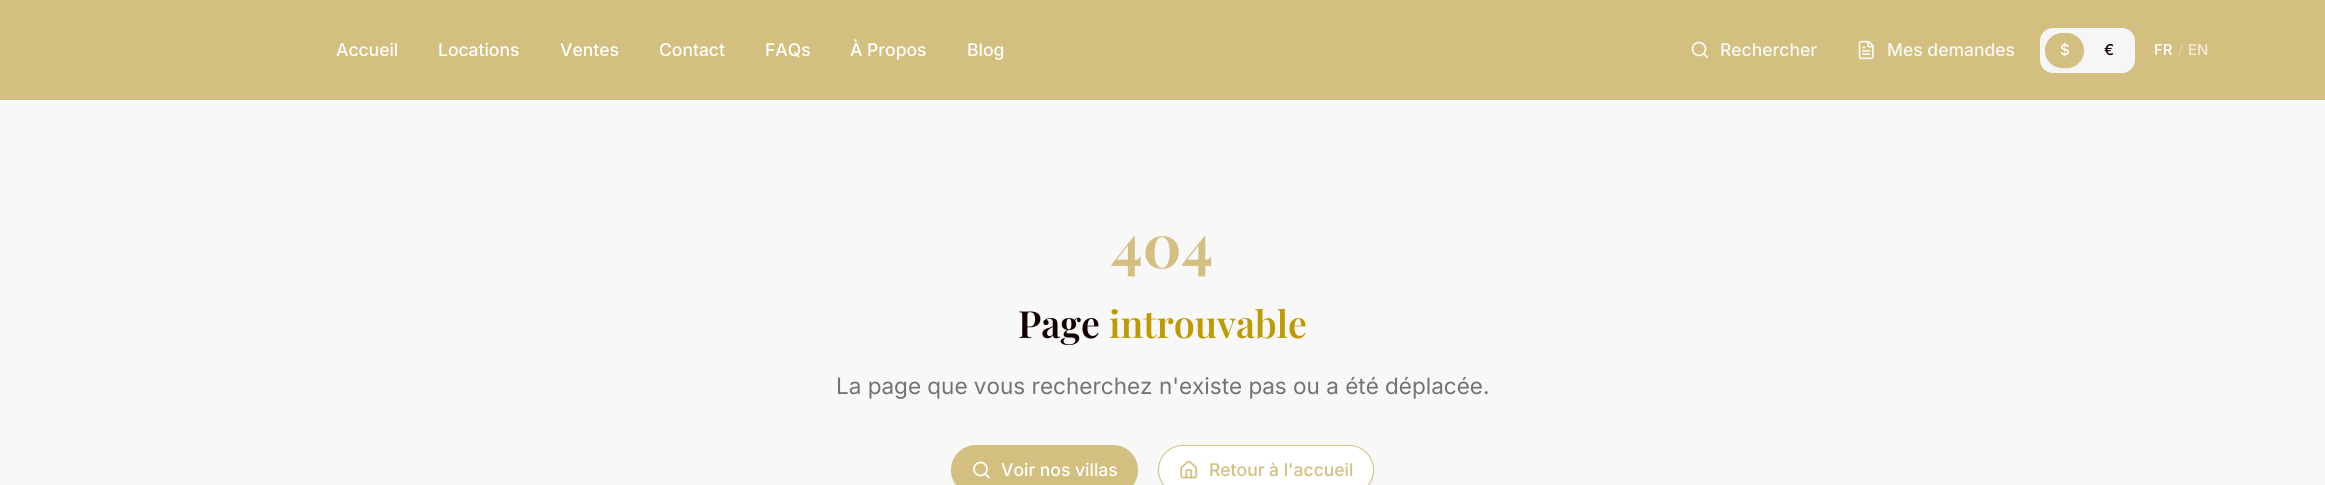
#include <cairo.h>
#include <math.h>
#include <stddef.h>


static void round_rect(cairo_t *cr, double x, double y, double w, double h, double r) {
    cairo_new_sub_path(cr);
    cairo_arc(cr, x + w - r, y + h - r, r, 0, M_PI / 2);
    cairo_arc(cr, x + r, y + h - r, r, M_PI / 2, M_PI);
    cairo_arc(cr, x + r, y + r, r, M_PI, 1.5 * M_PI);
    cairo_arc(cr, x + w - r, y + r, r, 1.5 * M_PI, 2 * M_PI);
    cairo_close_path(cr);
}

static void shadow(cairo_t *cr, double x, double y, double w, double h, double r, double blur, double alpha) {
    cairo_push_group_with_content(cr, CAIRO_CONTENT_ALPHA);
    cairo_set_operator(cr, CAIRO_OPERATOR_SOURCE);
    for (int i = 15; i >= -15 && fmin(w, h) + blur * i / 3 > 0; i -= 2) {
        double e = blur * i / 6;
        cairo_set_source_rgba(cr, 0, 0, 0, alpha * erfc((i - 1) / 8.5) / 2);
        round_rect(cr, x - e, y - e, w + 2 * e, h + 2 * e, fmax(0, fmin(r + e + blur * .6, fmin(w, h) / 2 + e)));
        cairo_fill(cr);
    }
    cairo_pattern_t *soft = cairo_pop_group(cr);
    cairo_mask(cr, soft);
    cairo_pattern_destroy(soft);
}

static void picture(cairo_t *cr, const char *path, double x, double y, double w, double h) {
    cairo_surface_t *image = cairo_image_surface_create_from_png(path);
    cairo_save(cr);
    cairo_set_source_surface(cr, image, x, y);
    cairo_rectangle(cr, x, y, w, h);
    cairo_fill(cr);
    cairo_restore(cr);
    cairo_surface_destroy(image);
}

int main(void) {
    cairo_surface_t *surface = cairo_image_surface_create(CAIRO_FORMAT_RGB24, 2325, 485);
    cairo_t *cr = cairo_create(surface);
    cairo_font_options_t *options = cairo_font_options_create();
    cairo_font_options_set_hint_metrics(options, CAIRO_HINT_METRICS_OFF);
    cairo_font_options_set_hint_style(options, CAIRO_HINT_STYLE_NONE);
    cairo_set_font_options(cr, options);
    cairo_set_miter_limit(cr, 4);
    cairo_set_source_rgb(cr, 0.969, 0.969, 0.969);
    cairo_paint(cr);
    cairo_set_source_rgb(cr, 0.827, 0.749, 0.498);
    cairo_rectangle(cr, 0, 0, 2325, 100);
    cairo_fill(cr);
    cairo_select_font_face(cr, "Inter Medium", CAIRO_FONT_SLANT_NORMAL, CAIRO_FONT_WEIGHT_NORMAL);
    cairo_set_font_size(cr, 17.5);
    cairo_set_source_rgb(cr, 1, 1, 1);
    cairo_move_to(cr, 336, 56);
    cairo_show_text(cr, "Accueil");
    cairo_move_to(cr, 438, 56);
    cairo_show_text(cr, "Locations");
    cairo_move_to(cr, 560, 56);
    cairo_show_text(cr, "Ventes");
    cairo_move_to(cr, 659, 56);
    cairo_show_text(cr, "Contact");
    cairo_move_to(cr, 765, 56);
    cairo_show_text(cr, "FAQs");
    cairo_move_to(cr, 850, 56);
    cairo_show_text(cr, "À Propos");
    cairo_move_to(cr, 967, 56);
    cairo_show_text(cr, "Blog");
    cairo_new_path(cr);
    cairo_move_to(cr, 1707.5, 57.5);
    cairo_line_to(cr, 1704, 54);
    cairo_set_source_rgb(cr, 0.969, 0.969, 0.969);
    cairo_set_line_width(cr, 1.7);
    cairo_set_line_cap(cr, CAIRO_LINE_CAP_ROUND);
    cairo_set_line_join(cr, CAIRO_LINE_JOIN_ROUND);
    cairo_stroke(cr);
    cairo_arc(cr, 1699, 49, 6.5, 0, 2 * M_PI);
    cairo_set_line_cap(cr, CAIRO_LINE_CAP_BUTT);
    cairo_set_line_join(cr, CAIRO_LINE_JOIN_MITER);
    cairo_stroke(cr);
    cairo_move_to(cr, 1720, 56);
    cairo_show_text(cr, "Rechercher");
    picture(cr, "img1.png", 1858, 40, 16, 20);
    cairo_move_to(cr, 1887, 56);
    cairo_show_text(cr, "Mes demandes");
    cairo_set_source_rgb(cr, 0.961, 0.961, 0.961);
    round_rect(cr, 2040, 28, 95, 45, 13);
    cairo_fill(cr);
    cairo_set_source_rgb(cr, 0, 0, 0);
    shadow(cr, 2045, 34, 39, 35, 17.5, 1, 0.05);
    cairo_set_source_rgb(cr, 0.827, 0.749, 0.498);
    round_rect(cr, 2045, 33, 39, 35, 17.5);
    cairo_fill(cr);
    cairo_set_font_size(cr, 15);
    cairo_set_source_rgb(cr, 1, 1, 1);
    cairo_move_to(cr, 2060, 55);
    cairo_show_text(cr, "$");
    cairo_set_source_rgb(cr, 0.078, 0, 0);
    cairo_move_to(cr, 2104, 55);
    cairo_show_text(cr, "€");
    cairo_set_source_rgb(cr, 1, 1, 1);
    cairo_move_to(cr, 2154, 55);
    cairo_show_text(cr, "FR");
    cairo_select_font_face(cr, "Inter", CAIRO_FONT_SLANT_NORMAL, CAIRO_FONT_WEIGHT_NORMAL);
    cairo_set_source_rgb(cr, 0.878, 0.824, 0.647);
    cairo_move_to(cr, 2178, 55);
    cairo_show_text(cr, "/");
    cairo_select_font_face(cr, "Inter Medium", CAIRO_FONT_SLANT_NORMAL, CAIRO_FONT_WEIGHT_NORMAL);
    cairo_set_source_rgb(cr, 0.949, 0.925, 0.851);
    cairo_move_to(cr, 2188, 55);
    cairo_show_text(cr, "EN");
    cairo_select_font_face(cr, "Playfair Display", CAIRO_FONT_SLANT_NORMAL, CAIRO_FONT_WEIGHT_BOLD);
    cairo_set_font_size(cr, 60);
    cairo_set_source_rgb(cr, 0.827, 0.749, 0.498);
    cairo_move_to(cr, 1111, 268);
    cairo_show_text(cr, "404");
    cairo_select_font_face(cr, "Playfair Display SemiBold", CAIRO_FONT_SLANT_NORMAL, CAIRO_FONT_WEIGHT_NORMAL);
    cairo_set_font_size(cr, 37.5);
    cairo_set_source_rgb(cr, 0.078, 0, 0);
    cairo_move_to(cr, 1018, 338);
    cairo_show_text(cr, "Page");
    cairo_set_source_rgb(cr, 0.745, 0.6, 0);
    cairo_move_to(cr, 1109, 338);
    cairo_show_text(cr, "introuvable");
    cairo_select_font_face(cr, "Inter", CAIRO_FONT_SLANT_NORMAL, CAIRO_FONT_WEIGHT_NORMAL);
    cairo_set_font_size(cr, 22.5);
    cairo_set_source_rgb(cr, 0.451, 0.451, 0.451);
    cairo_move_to(cr, 836, 394);
    cairo_show_text(cr, "La page que vous recherchez n'existe pas ou a été déplacée.");
    cairo_set_source_rgb(cr, 0, 0, 0);
    shadow(cr, 951, 446, 187, 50, 25, 1, 0.05);
    cairo_set_source_rgb(cr, 0.827, 0.749, 0.498);
    round_rect(cr, 951, 445, 187, 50, 25);
    cairo_fill(cr);
    cairo_new_path(cr);
    cairo_move_to(cr, 989, 477.5);
    cairo_line_to(cr, 985, 474);
    cairo_set_source_rgb(cr, 1, 1, 1);
    cairo_set_line_cap(cr, CAIRO_LINE_CAP_ROUND);
    cairo_set_line_join(cr, CAIRO_LINE_JOIN_ROUND);
    cairo_stroke(cr);
    cairo_arc(cr, 980.5, 469, 6.5, 0, 2 * M_PI);
    cairo_set_line_cap(cr, CAIRO_LINE_CAP_BUTT);
    cairo_set_line_join(cr, CAIRO_LINE_JOIN_MITER);
    cairo_stroke(cr);
    cairo_select_font_face(cr, "Inter Medium", CAIRO_FONT_SLANT_NORMAL, CAIRO_FONT_WEIGHT_NORMAL);
    cairo_set_font_size(cr, 17.5);
    cairo_move_to(cr, 1001, 476);
    cairo_show_text(cr, "Voir nos villas");
    cairo_set_source_rgb(cr, 0, 0, 0);
    shadow(cr, 1158, 446, 216, 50, 25, 1, 0.05);
    cairo_set_source_rgb(cr, 1, 1, 1);
    round_rect(cr, 1158.5, 445.5, 215, 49, 24.5);
    cairo_fill_preserve(cr);
    cairo_set_source_rgb(cr, 0.827, 0.749, 0.498);
    cairo_set_line_width(cr, 1);
    cairo_stroke(cr);
    picture(cr, "img2.png", 1180, 460, 18, 19);
    cairo_move_to(cr, 1209, 476);
    cairo_show_text(cr, "Retour à l'accueil");
    cairo_surface_write_to_png(surface, "page.png");
    cairo_font_options_destroy(options);
    cairo_destroy(cr);
    cairo_surface_destroy(surface);
    return 0;
}
